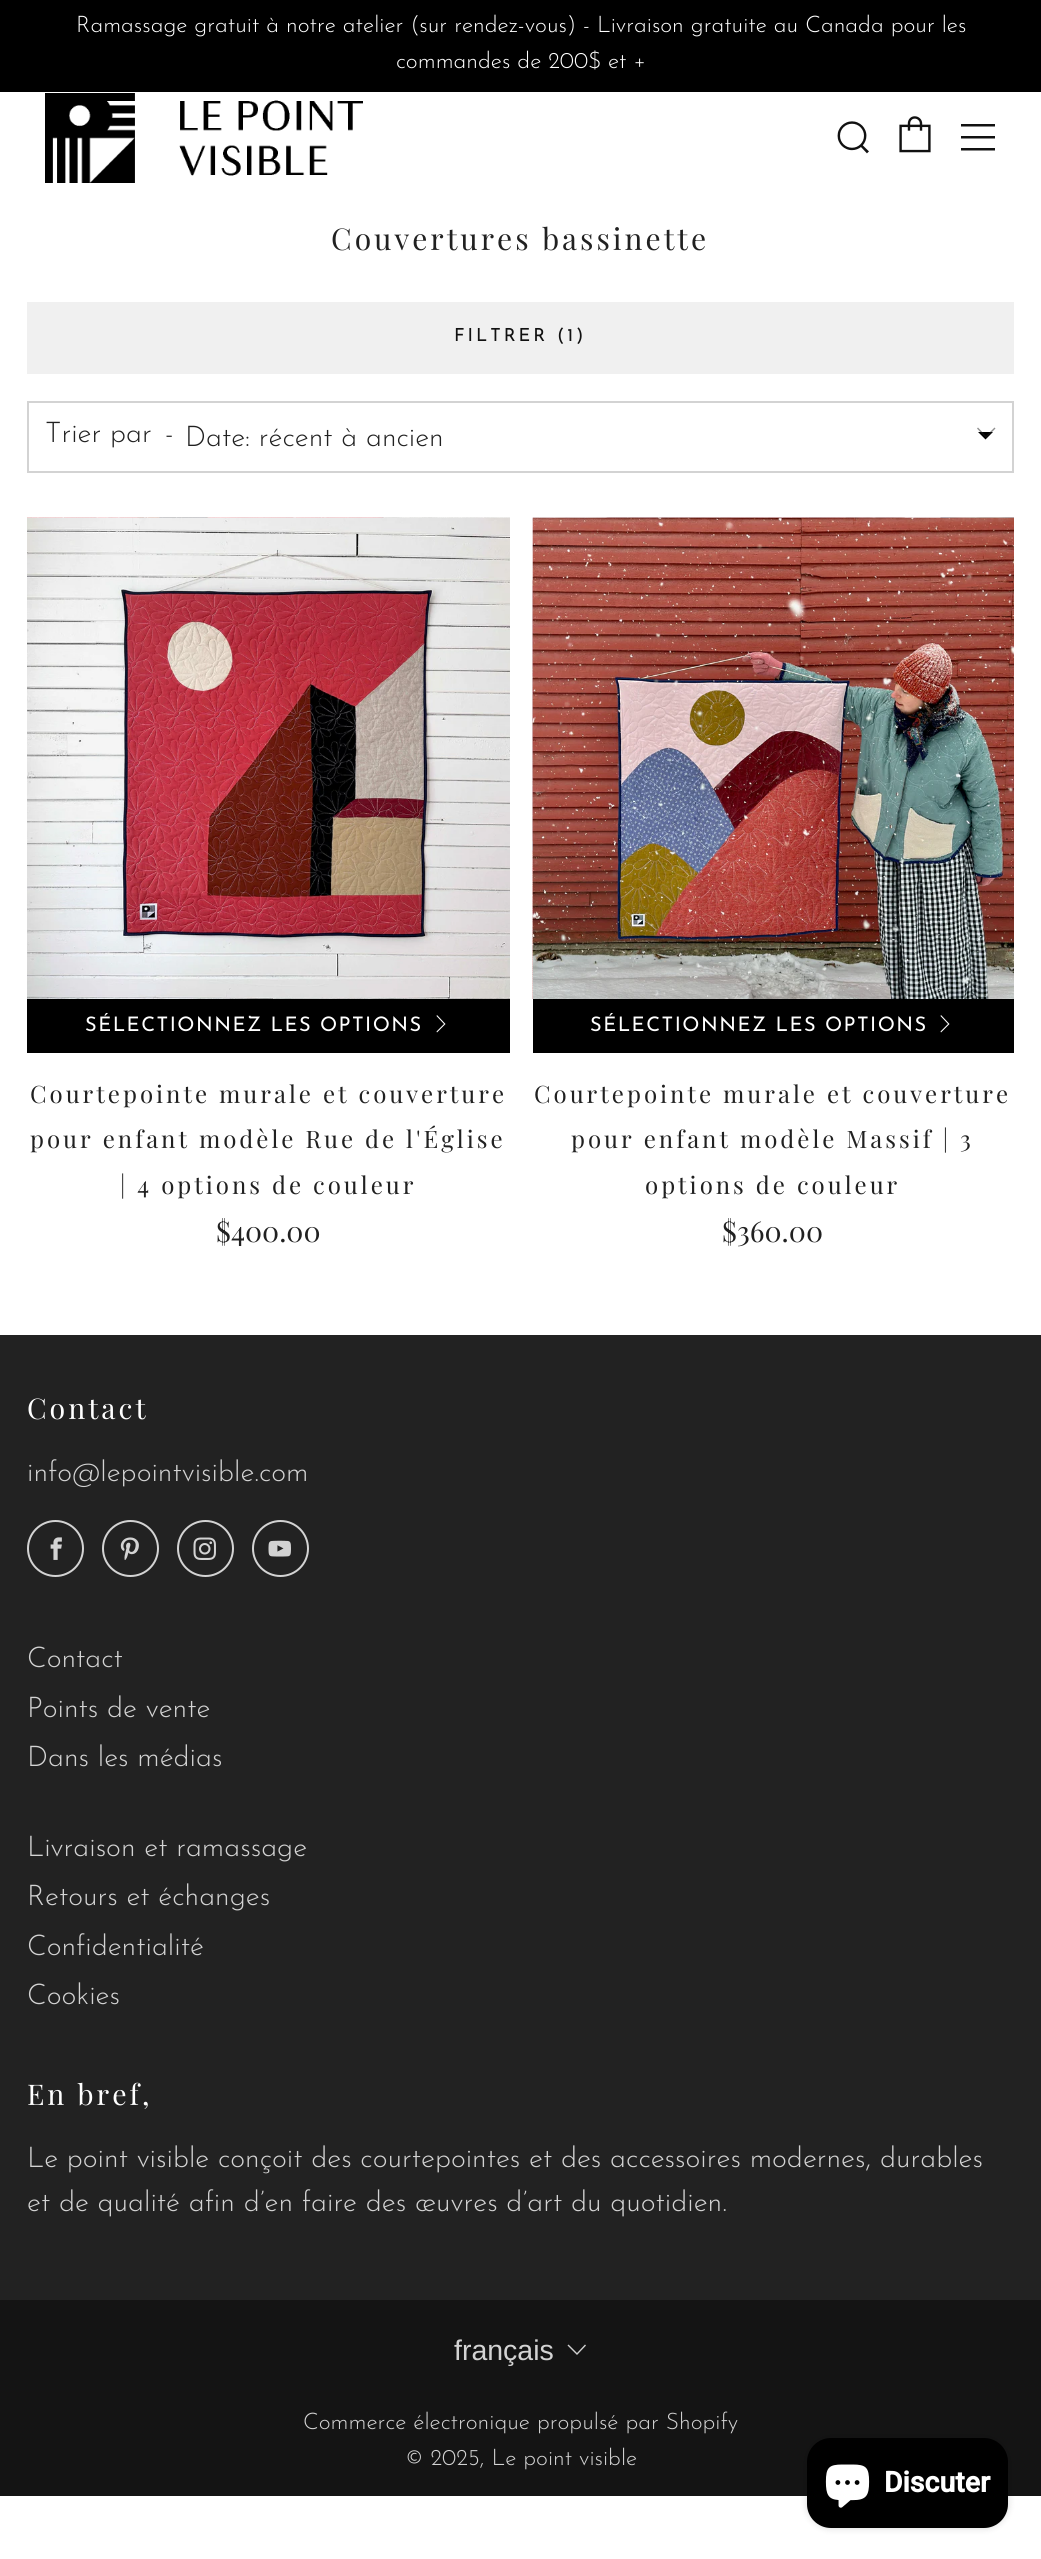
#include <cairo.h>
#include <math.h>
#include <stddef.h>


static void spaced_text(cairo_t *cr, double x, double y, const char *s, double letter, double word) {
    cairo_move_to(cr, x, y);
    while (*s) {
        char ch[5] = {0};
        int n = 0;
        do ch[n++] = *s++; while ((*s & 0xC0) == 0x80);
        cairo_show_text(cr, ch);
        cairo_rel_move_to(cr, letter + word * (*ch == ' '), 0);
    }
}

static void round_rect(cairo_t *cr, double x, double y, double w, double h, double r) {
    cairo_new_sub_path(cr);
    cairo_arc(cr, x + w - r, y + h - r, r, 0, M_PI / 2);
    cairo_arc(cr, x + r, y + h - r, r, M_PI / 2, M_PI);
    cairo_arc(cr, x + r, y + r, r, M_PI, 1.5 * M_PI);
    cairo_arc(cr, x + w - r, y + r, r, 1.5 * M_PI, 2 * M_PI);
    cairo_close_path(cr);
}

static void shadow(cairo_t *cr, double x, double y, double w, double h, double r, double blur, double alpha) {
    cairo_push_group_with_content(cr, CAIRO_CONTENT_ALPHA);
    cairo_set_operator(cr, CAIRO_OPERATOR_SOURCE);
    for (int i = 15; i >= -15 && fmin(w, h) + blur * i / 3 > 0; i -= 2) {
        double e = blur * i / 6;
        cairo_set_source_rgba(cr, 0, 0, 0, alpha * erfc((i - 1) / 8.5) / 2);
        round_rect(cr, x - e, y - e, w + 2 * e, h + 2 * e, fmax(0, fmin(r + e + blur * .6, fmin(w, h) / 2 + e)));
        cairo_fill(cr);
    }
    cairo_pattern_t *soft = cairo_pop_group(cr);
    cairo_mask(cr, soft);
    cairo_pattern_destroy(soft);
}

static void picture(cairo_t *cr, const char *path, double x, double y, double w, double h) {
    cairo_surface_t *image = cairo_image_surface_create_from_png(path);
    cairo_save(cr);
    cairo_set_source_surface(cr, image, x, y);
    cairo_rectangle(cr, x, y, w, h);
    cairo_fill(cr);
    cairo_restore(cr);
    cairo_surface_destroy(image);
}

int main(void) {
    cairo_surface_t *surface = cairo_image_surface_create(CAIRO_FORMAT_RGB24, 1041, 2559);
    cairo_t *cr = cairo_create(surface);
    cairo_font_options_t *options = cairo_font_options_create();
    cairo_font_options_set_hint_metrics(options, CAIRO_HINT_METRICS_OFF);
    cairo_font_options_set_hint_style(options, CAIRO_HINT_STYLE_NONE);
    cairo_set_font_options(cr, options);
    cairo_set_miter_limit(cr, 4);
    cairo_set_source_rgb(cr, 1, 1, 1);
    cairo_paint(cr);
    cairo_set_source_rgb(cr, 0, 0, 0);
    cairo_rectangle(cr, 0, 0, 1041, 92);
    cairo_fill(cr);
    cairo_select_font_face(cr, "Josefin Sans Light", CAIRO_FONT_SLANT_NORMAL, CAIRO_FONT_WEIGHT_NORMAL);
    cairo_set_font_size(cr, 22.8);
    cairo_set_source_rgb(cr, 1, 1, 1);
    cairo_move_to(cr, 76, 32);
    cairo_show_text(cr, "Ramassage gratuit à notre atelier (sur rendez-vous) - Livraison gratuite au Canada pour les");
    cairo_move_to(cr, 396, 68);
    cairo_show_text(cr, "commandes de 200$ et +");
    picture(cr, "img1.png", 45, 93, 318, 90);
    picture(cr, "img2.png", 837, 121, 32, 33);
    picture(cr, "img3.png", 899, 116, 32, 37);
    cairo_set_source_rgb(cr, 0.067, 0.067, 0.067);
    cairo_new_path(cr);
    cairo_move_to(cr, 961, 126.5);
    cairo_line_to(cr, 995, 126.5);
    cairo_line_to(cr, 995, 124);
    cairo_line_to(cr, 961, 124);
    cairo_close_path(cr);
    cairo_move_to(cr, 961, 150.5);
    cairo_line_to(cr, 995, 150.5);
    cairo_line_to(cr, 995, 148);
    cairo_line_to(cr, 961, 148);
    cairo_close_path(cr);
    cairo_move_to(cr, 961, 138.5);
    cairo_line_to(cr, 995, 138.5);
    cairo_line_to(cr, 995, 136);
    cairo_line_to(cr, 961, 136);
    cairo_close_path(cr);
    cairo_fill(cr);
    cairo_select_font_face(cr, "Playfair Display", CAIRO_FONT_SLANT_NORMAL, CAIRO_FONT_WEIGHT_NORMAL);
    cairo_set_font_size(cr, 30);
    cairo_set_source_rgb(cr, 0.129, 0.129, 0.129);
    spaced_text(cr, 331, 250, "Couvertures bassinette", 3, 0);
    cairo_set_source_rgb(cr, 0.941, 0.941, 0.941);
    cairo_rectangle(cr, 27, 302, 987, 72);
    cairo_fill(cr);
    cairo_select_font_face(cr, "Josefin Sans", CAIRO_FONT_SLANT_NORMAL, CAIRO_FONT_WEIGHT_NORMAL);
    cairo_set_font_size(cr, 18);
    cairo_set_source_rgb(cr, 0.067, 0.067, 0.067);
    spaced_text(cr, 454, 341, "FILTRER (1)", 3, 0);
    cairo_set_source_rgb(cr, 0, 0, 0);
    cairo_new_path(cr);
    cairo_move_to(cr, 978, 432);
    cairo_line_to(cr, 985.5, 439.5);
    cairo_line_to(cr, 993, 432);
    cairo_close_path(cr);
    cairo_fill(cr);
    cairo_rectangle(cr, 28, 402, 985, 70);
    cairo_set_source_rgb(cr, 0.827, 0.827, 0.827);
    cairo_stroke(cr);
    cairo_select_font_face(cr, "Josefin Sans Light", CAIRO_FONT_SLANT_NORMAL, CAIRO_FONT_WEIGHT_NORMAL);
    cairo_set_font_size(cr, 28.5);
    cairo_set_source_rgb(cr, 0.129, 0.129, 0.129);
    cairo_move_to(cr, 45, 442);
    cairo_show_text(cr, "Trier par");
    cairo_move_to(cr, 165, 442);
    cairo_show_text(cr, "-");
    cairo_move_to(cr, 185, 446);
    cairo_show_text(cr, "Date: récent à ancien");
    cairo_set_source_rgba(cr, 0.129, 0.129, 0.129, 0.5);
    cairo_new_path(cr);
    cairo_move_to(cr, 978, 427.5);
    cairo_line_to(cr, 977, 428.5);
    cairo_line_to(cr, 986, 438);
    cairo_line_to(cr, 995.5, 428.5);
    cairo_line_to(cr, 994.5, 427.5);
    cairo_line_to(cr, 986, 436);
    cairo_close_path(cr);
    cairo_fill(cr);
    picture(cr, "img4.png", 27, 517, 483, 1);
    picture(cr, "img5.png", 27, 517, 483, 482);
    cairo_set_source_rgb(cr, 0, 0, 0);
    cairo_rectangle(cr, 27, 999, 483, 54);
    cairo_fill(cr);
    cairo_select_font_face(cr, "Josefin Sans", CAIRO_FONT_SLANT_NORMAL, CAIRO_FONT_WEIGHT_NORMAL);
    cairo_set_font_size(cr, 20);
    cairo_set_source_rgb(cr, 1, 1, 1);
    spaced_text(cr, 85, 1031, "SÉLECTIONNEZ LES OPTIONS", 1.5, 0);
    cairo_new_path(cr);
    cairo_move_to(cr, 436.5, 1031.5);
    cairo_line_to(cr, 437, 1032.5);
    cairo_line_to(cr, 445.5, 1024);
    cairo_line_to(cr, 437, 1015);
    cairo_line_to(cr, 436.5, 1016);
    cairo_line_to(cr, 444, 1024);
    cairo_close_path(cr);
    cairo_fill(cr);
    cairo_select_font_face(cr, "Playfair Display", CAIRO_FONT_SLANT_NORMAL, CAIRO_FONT_WEIGHT_NORMAL);
    cairo_set_font_size(cr, 24);
    cairo_set_source_rgb(cr, 0.129, 0.129, 0.129);
    spaced_text(cr, 30, 1103, "Courtepointe murale et couverture", 3, 0);
    spaced_text(cr, 30, 1148, "pour enfant modèle Rue de l'Église", 3, 0);
    spaced_text(cr, 120, 1194, "| 4 options de couleur", 3, 0);
    cairo_set_font_size(cr, 28.5);
    cairo_move_to(cr, 216, 1242);
    cairo_show_text(cr, "$400.00");
    picture(cr, "img6.png", 532, 517, 482, 482);
    picture(cr, "img7.png", 532, 517, 482, 482);
    cairo_set_source_rgb(cr, 0, 0, 0);
    cairo_rectangle(cr, 533, 999, 481, 54);
    cairo_fill(cr);
    cairo_select_font_face(cr, "Josefin Sans", CAIRO_FONT_SLANT_NORMAL, CAIRO_FONT_WEIGHT_NORMAL);
    cairo_set_font_size(cr, 20);
    cairo_set_source_rgb(cr, 1, 1, 1);
    spaced_text(cr, 590, 1031, "SÉLECTIONNEZ LES OPTIONS", 1.5, 0);
    cairo_new_path(cr);
    cairo_move_to(cr, 940.5, 1031.5);
    cairo_line_to(cr, 941, 1032.5);
    cairo_line_to(cr, 949.5, 1024);
    cairo_line_to(cr, 941, 1015);
    cairo_line_to(cr, 940.5, 1016);
    cairo_line_to(cr, 948, 1024);
    cairo_close_path(cr);
    cairo_fill(cr);
    cairo_select_font_face(cr, "Playfair Display", CAIRO_FONT_SLANT_NORMAL, CAIRO_FONT_WEIGHT_NORMAL);
    cairo_set_font_size(cr, 24);
    cairo_set_source_rgb(cr, 0.129, 0.129, 0.129);
    spaced_text(cr, 534, 1103, "Courtepointe murale et couverture", 3, 0);
    spaced_text(cr, 571, 1148, "pour enfant modèle Massif | 3", 3, 0);
    spaced_text(cr, 645, 1194, "options de couleur", 3, 0);
    cairo_set_font_size(cr, 28.5);
    cairo_move_to(cr, 722, 1242);
    cairo_show_text(cr, "$360.00");
    cairo_set_source_rgb(cr, 0.133, 0.133, 0.133);
    cairo_rectangle(cr, 0, 1335, 1041, 965);
    cairo_fill(cr);
    cairo_set_source_rgb(cr, 1, 1, 1);
    spaced_text(cr, 27, 1419, "Contact", 3, 0);
    cairo_select_font_face(cr, "Josefin Sans Light", CAIRO_FONT_SLANT_NORMAL, CAIRO_FONT_WEIGHT_NORMAL);
    cairo_set_source_rgb(cr, 0.827, 0.827, 0.827);
    cairo_move_to(cr, 27, 1481);
    cairo_show_text(cr, "info@lepointvisible.com");
    cairo_new_path(cr);
    cairo_arc(cr, 55.5, 1548.5, 27.5, 0, 2 * M_PI);
    cairo_stroke(cr);
    picture(cr, "img8.png", 50, 1537, 12, 23);
    cairo_arc(cr, 130.5, 1548.5, 27.5, 0, 2 * M_PI);
    cairo_stroke(cr);
    picture(cr, "img9.png", 120, 1537, 19, 23);
    cairo_arc(cr, 205.5, 1548.5, 27.5, 0, 2 * M_PI);
    cairo_stroke(cr);
    picture(cr, "img10.png", 193, 1537, 23, 23);
    cairo_arc(cr, 280.5, 1548.5, 27.5, 0, 2 * M_PI);
    cairo_stroke(cr);
    picture(cr, "img11.png", 268, 1540, 23, 17);
    cairo_move_to(cr, 27, 1667);
    cairo_show_text(cr, "Contact");
    cairo_move_to(cr, 27, 1717);
    cairo_show_text(cr, "Points de vente");
    cairo_move_to(cr, 27, 1766);
    cairo_show_text(cr, "Dans les médias");
    cairo_move_to(cr, 27, 1856);
    cairo_show_text(cr, "Livraison et ramassage");
    cairo_move_to(cr, 27, 1905);
    cairo_show_text(cr, "Retours et échanges");
    cairo_move_to(cr, 27, 1955);
    cairo_show_text(cr, "Confidentialité");
    cairo_move_to(cr, 27, 2004);
    cairo_show_text(cr, "Cookies");
    cairo_select_font_face(cr, "Playfair Display", CAIRO_FONT_SLANT_NORMAL, CAIRO_FONT_WEIGHT_NORMAL);
    cairo_set_source_rgb(cr, 1, 1, 1);
    spaced_text(cr, 27, 2105, "En bref,", 3, 0);
    cairo_select_font_face(cr, "Josefin Sans Light", CAIRO_FONT_SLANT_NORMAL, CAIRO_FONT_WEIGHT_NORMAL);
    cairo_set_source_rgb(cr, 0.827, 0.827, 0.827);
    cairo_move_to(cr, 27, 2167);
    cairo_show_text(cr, "Le point visible conçoit des courtepointes et des accessoires modernes, durables");
    cairo_move_to(cr, 27, 2211);
    cairo_show_text(cr, "et de qualité afin d’en faire des œuvres d’art du quotidien.");
    cairo_set_source_rgb(cr, 0.082, 0.082, 0.082);
    cairo_rectangle(cr, 0, 2300, 1041, 196);
    cairo_fill(cr);
    cairo_select_font_face(cr, "Liberation Sans", CAIRO_FONT_SLANT_NORMAL, CAIRO_FONT_WEIGHT_NORMAL);
    cairo_set_source_rgb(cr, 0.827, 0.827, 0.827);
    cairo_move_to(cr, 454, 2360);
    cairo_show_text(cr, "français");
    cairo_set_source_rgb(cr, 0.816, 0.816, 0.816);
    cairo_new_path(cr);
    cairo_move_to(cr, 568.5, 2344.5);
    cairo_line_to(cr, 567.5, 2345.5);
    cairo_line_to(cr, 577, 2355);
    cairo_line_to(cr, 586, 2345.5);
    cairo_line_to(cr, 585, 2344.5);
    cairo_line_to(cr, 577, 2353);
    cairo_close_path(cr);
    cairo_fill(cr);
    cairo_select_font_face(cr, "Josefin Sans Light", CAIRO_FONT_SLANT_NORMAL, CAIRO_FONT_WEIGHT_NORMAL);
    cairo_set_font_size(cr, 22.8);
    cairo_set_source_rgb(cr, 0.827, 0.827, 0.827);
    cairo_move_to(cr, 303, 2429);
    cairo_show_text(cr, "Commerce électronique propulsé par Shopify");
    cairo_move_to(cr, 405, 2465);
    cairo_show_text(cr, "© 2025, Le point visible");
    cairo_set_source_rgb(cr, 0, 0, 0);
    shadow(cr, 807, 2438, 201, 90, 24, 4, 0.15);
    cairo_set_source_rgb(cr, 0, 0, 0);
    round_rect(cr, 807, 2438, 201, 90, 24);
    cairo_fill(cr);
    picture(cr, "img12.png", 825, 2464, 45, 44);
    cairo_select_font_face(cr, "Roboto", CAIRO_FONT_SLANT_NORMAL, CAIRO_FONT_WEIGHT_BOLD);
    cairo_set_font_size(cr, 28.5);
    cairo_set_source_rgb(cr, 1, 1, 1);
    cairo_move_to(cr, 884, 2492);
    cairo_show_text(cr, "Discuter");
    cairo_surface_write_to_png(surface, "page.png");
    cairo_font_options_destroy(options);
    cairo_destroy(cr);
    cairo_surface_destroy(surface);
    return 0;
}
